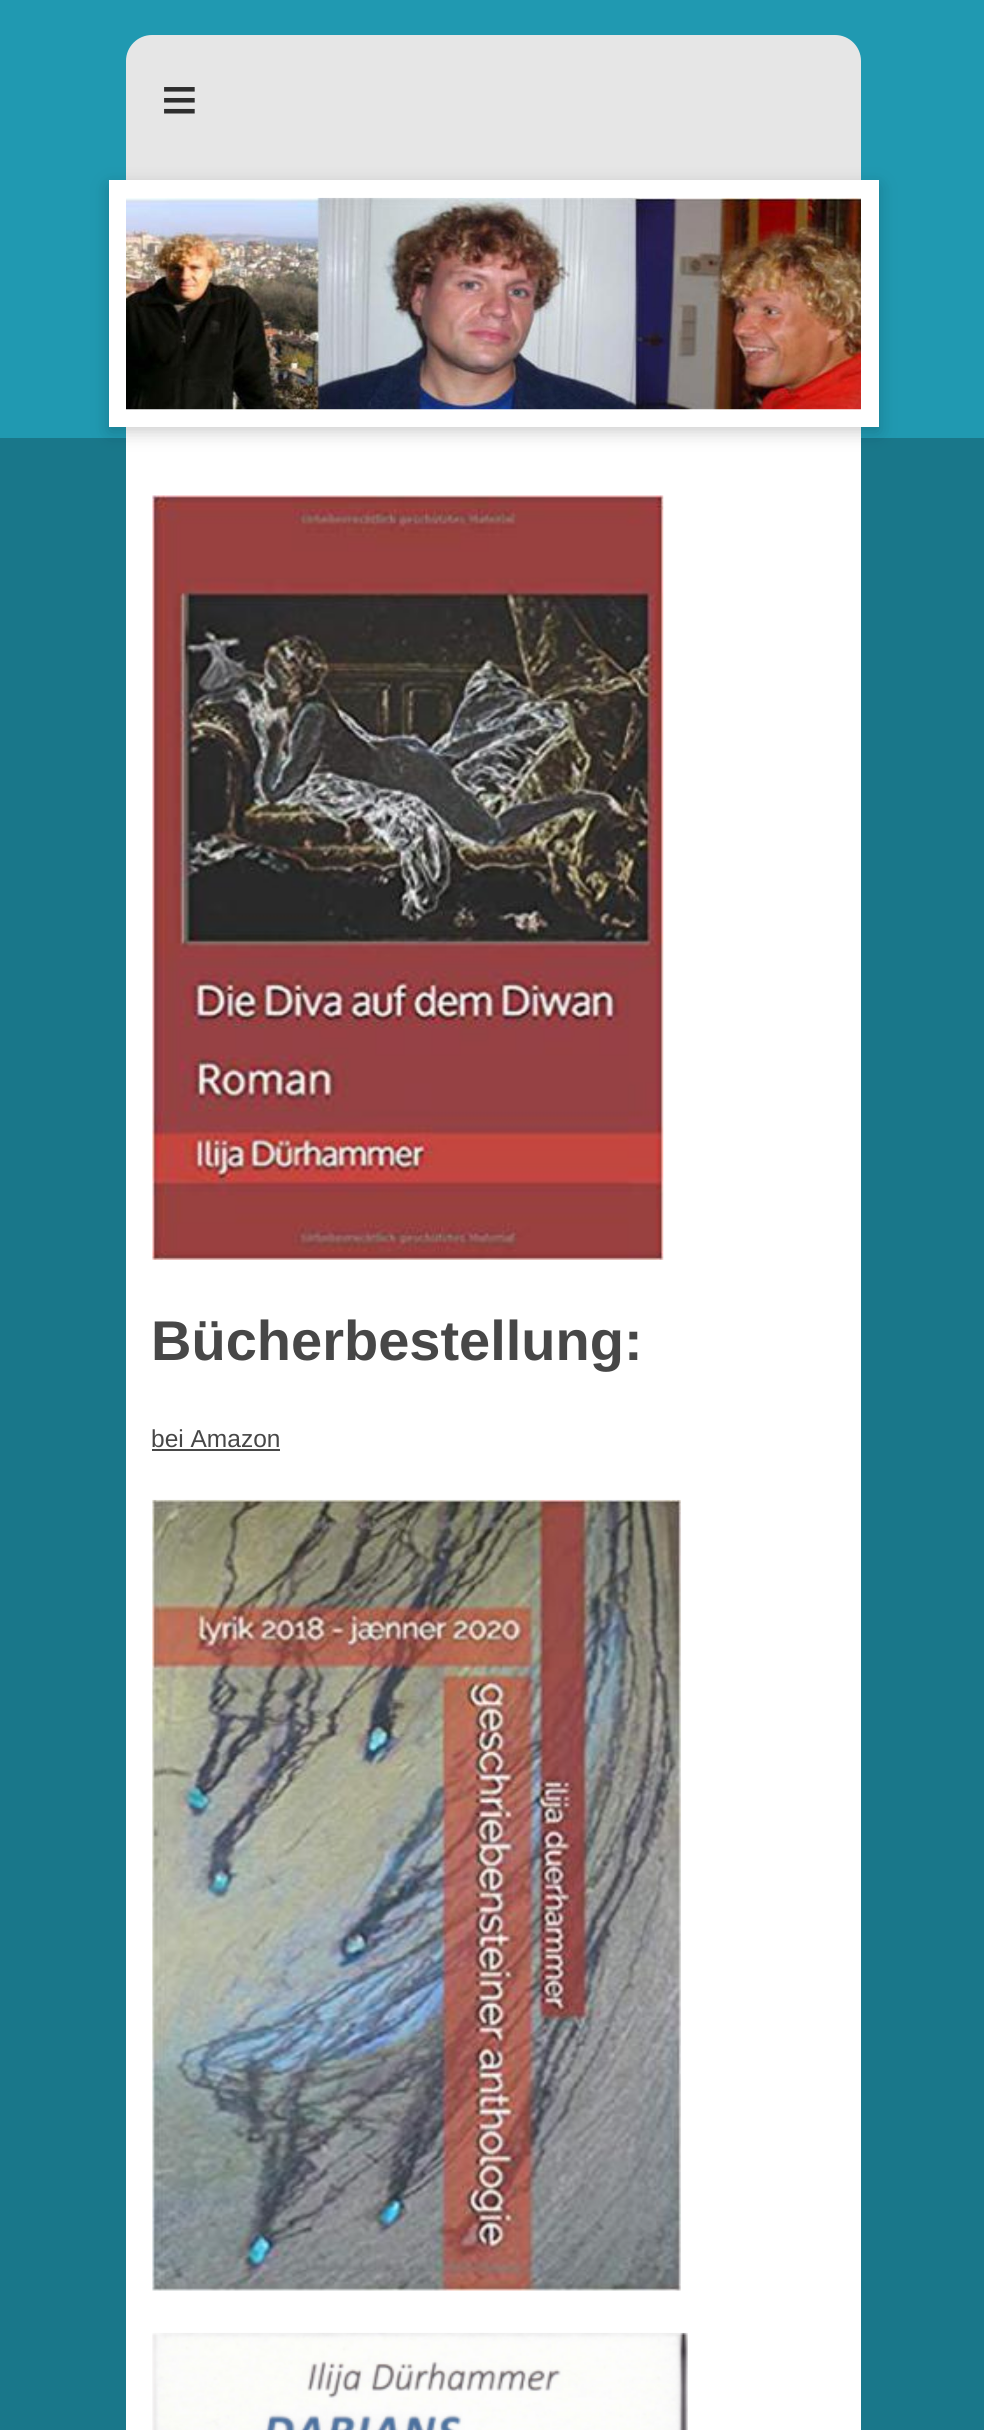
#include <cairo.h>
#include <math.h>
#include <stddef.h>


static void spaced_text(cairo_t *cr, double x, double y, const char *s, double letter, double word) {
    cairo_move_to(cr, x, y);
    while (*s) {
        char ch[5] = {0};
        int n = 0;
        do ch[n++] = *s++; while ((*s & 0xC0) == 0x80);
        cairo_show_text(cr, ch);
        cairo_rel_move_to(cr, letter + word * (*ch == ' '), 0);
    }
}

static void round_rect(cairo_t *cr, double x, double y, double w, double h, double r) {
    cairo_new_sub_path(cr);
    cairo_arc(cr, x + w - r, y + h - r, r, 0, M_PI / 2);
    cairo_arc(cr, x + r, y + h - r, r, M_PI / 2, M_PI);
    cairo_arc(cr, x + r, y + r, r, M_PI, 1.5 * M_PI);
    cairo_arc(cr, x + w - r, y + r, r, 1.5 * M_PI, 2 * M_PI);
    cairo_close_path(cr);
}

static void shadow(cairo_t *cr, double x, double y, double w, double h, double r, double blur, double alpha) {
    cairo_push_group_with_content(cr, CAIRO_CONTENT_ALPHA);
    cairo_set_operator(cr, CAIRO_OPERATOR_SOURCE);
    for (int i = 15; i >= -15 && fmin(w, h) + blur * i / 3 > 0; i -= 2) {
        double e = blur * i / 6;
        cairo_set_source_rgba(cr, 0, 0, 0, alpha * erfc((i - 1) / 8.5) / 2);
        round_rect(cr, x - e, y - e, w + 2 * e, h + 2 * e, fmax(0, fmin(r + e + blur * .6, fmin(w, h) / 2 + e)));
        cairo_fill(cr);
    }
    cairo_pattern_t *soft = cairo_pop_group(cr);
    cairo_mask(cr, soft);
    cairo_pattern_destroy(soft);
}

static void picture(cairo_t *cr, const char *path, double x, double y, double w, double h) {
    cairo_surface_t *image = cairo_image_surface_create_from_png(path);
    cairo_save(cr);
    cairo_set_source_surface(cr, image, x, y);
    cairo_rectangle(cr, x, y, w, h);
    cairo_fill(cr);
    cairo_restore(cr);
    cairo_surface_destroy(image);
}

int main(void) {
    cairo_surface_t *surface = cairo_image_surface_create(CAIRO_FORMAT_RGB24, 984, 2430);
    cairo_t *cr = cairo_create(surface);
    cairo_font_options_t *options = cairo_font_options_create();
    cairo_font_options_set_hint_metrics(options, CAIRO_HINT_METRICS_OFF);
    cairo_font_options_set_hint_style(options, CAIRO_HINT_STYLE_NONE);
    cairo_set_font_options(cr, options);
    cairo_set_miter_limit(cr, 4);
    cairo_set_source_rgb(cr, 0.098, 0.467, 0.541);
    cairo_paint(cr);
    cairo_set_source_rgb(cr, 0.125, 0.6, 0.694);
    cairo_rectangle(cr, 0, 0, 984, 438);
    cairo_fill(cr);
    cairo_set_source_rgb(cr, 0.902, 0.902, 0.902);
    round_rect(cr, 126, 35, 735, 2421, 26);
    cairo_fill(cr);
    cairo_select_font_face(cr, "Liberation Sans", CAIRO_FONT_SLANT_NORMAL, CAIRO_FONT_WEIGHT_NORMAL);
    cairo_set_font_size(cr, 63);
    cairo_set_source_rgb(cr, 0.18, 0.18, 0.18);
    spaced_text(cr, 161, 121, "≡", 18, 0);
    cairo_set_source_rgb(cr, 1, 1, 1);
    cairo_rectangle(cr, 126, 427, 735, 2003);
    cairo_fill(cr);
    cairo_set_source_rgb(cr, 0, 0, 0);
    shadow(cr, 109, 186, 770, 246, 0, 9, 0.2);
    cairo_rectangle(cr, 118, 189, 752, 229);
    cairo_set_source_rgb(cr, 1, 1, 1);
    cairo_set_line_width(cr, 18);
    cairo_stroke(cr);
    picture(cr, "img1.png", 126, 197, 735, 213);
    picture(cr, "img2.png", 152, 495, 512, 765);
    cairo_select_font_face(cr, "Liberation Sans", CAIRO_FONT_SLANT_NORMAL, CAIRO_FONT_WEIGHT_BOLD);
    cairo_set_font_size(cr, 56);
    cairo_set_source_rgb(cr, 0.278, 0.278, 0.278);
    cairo_move_to(cr, 151, 1360);
    cairo_show_text(cr, "Bücherbestellung:");
    cairo_select_font_face(cr, "Liberation Sans", CAIRO_FONT_SLANT_NORMAL, CAIRO_FONT_WEIGHT_NORMAL);
    cairo_set_font_size(cr, 24.5);
    cairo_move_to(cr, 151, 1447);
    cairo_show_text(cr, "bei Amazon");
    cairo_rectangle(cr, 152, 1449, 128, 2);
    cairo_fill(cr);
    picture(cr, "img3.png", 152, 1499, 529, 792);
    picture(cr, "img4.png", 152, 2332, 536, 98);
    cairo_surface_write_to_png(surface, "page.png");
    cairo_font_options_destroy(options);
    cairo_destroy(cr);
    cairo_surface_destroy(surface);
    return 0;
}
